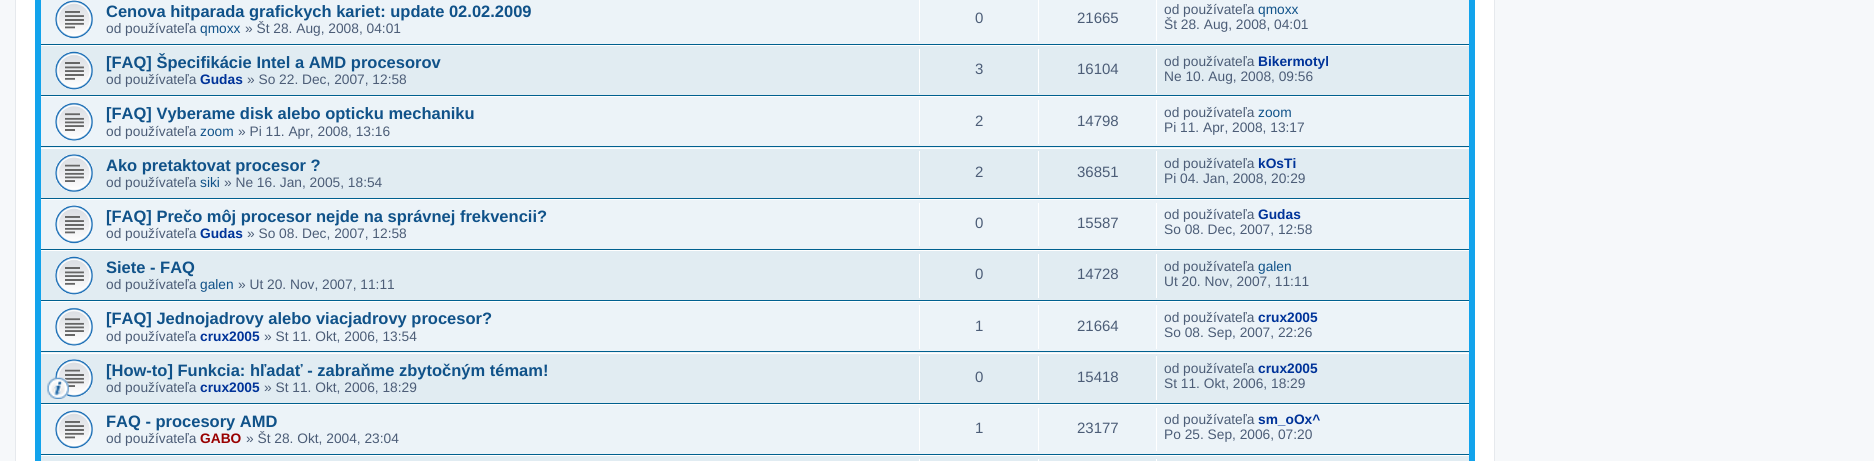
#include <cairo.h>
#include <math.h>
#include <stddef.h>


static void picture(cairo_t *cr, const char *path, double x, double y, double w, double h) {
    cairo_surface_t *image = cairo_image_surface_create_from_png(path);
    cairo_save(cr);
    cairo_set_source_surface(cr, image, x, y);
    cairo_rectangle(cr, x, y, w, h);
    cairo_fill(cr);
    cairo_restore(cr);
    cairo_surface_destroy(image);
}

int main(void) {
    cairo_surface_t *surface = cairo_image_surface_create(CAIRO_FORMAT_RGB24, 1874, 461);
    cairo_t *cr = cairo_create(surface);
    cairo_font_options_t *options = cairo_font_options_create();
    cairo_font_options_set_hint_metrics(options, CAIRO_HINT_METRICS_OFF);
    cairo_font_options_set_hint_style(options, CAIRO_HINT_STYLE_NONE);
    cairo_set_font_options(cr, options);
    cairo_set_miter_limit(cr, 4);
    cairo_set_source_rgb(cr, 0.961, 0.969, 0.98);
    cairo_paint(cr);
    cairo_set_source_rgb(cr, 1, 1, 1);
    cairo_rectangle(cr, 15.5, -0.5, 1479, 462);
    cairo_fill_preserve(cr);
    cairo_set_source_rgb(cr, 0.902, 0.914, 0.929);
    cairo_set_line_width(cr, 1);
    cairo_stroke(cr);
    cairo_set_source_rgb(cr, 0.071, 0.639, 0.922);
    cairo_rectangle(cr, 35, 0, 1440, 461);
    cairo_fill(cr);
    cairo_set_source_rgb(cr, 0.925, 0.953, 0.969);
    cairo_rectangle(cr, 41, 0, 1428, 44);
    cairo_fill(cr);
    cairo_set_source_rgb(cr, 0, 0.376, 0.561);
    cairo_rectangle(cr, 41, 44, 1428, 1);
    cairo_fill(cr);
    picture(cr, "img1.png", 55, 0, 38, 39);
    cairo_select_font_face(cr, "Liberation Sans", CAIRO_FONT_SLANT_NORMAL, CAIRO_FONT_WEIGHT_BOLD);
    cairo_set_font_size(cr, 16.5);
    cairo_set_source_rgb(cr, 0.063, 0.322, 0.537);
    cairo_move_to(cr, 106, 17);
    cairo_show_text(cr, "Cenova hitparada grafickych kariet: update 02.02.2009");
    cairo_select_font_face(cr, "Liberation Sans", CAIRO_FONT_SLANT_NORMAL, CAIRO_FONT_WEIGHT_NORMAL);
    cairo_set_font_size(cr, 13.75);
    cairo_set_source_rgb(cr, 0.298, 0.365, 0.467);
    cairo_move_to(cr, 106, 33);
    cairo_show_text(cr, "od používateľa");
    cairo_set_source_rgb(cr, 0.063, 0.322, 0.537);
    cairo_move_to(cr, 200, 33);
    cairo_show_text(cr, "qmoxx");
    cairo_set_source_rgb(cr, 0.298, 0.365, 0.467);
    cairo_move_to(cr, 245, 33);
    cairo_show_text(cr, "» Št 28. Aug, 2008, 04:01");
    cairo_set_source_rgb(cr, 1, 1, 1);
    cairo_rectangle(cr, 919, 0, 1, 41);
    cairo_fill(cr);
    cairo_set_font_size(cr, 15);
    cairo_set_source_rgb(cr, 0.298, 0.365, 0.467);
    cairo_move_to(cr, 975, 23);
    cairo_show_text(cr, "0");
    cairo_set_source_rgb(cr, 1, 1, 1);
    cairo_rectangle(cr, 1038, 0, 1, 41);
    cairo_fill(cr);
    cairo_set_source_rgb(cr, 0.298, 0.365, 0.467);
    cairo_move_to(cr, 1077, 23);
    cairo_show_text(cr, "21665");
    cairo_set_source_rgb(cr, 1, 1, 1);
    cairo_rectangle(cr, 1156, 0, 1, 41);
    cairo_fill(cr);
    cairo_set_font_size(cr, 13.75);
    cairo_set_source_rgb(cr, 0.298, 0.365, 0.467);
    cairo_move_to(cr, 1164, 14);
    cairo_show_text(cr, "od používateľa");
    cairo_set_source_rgb(cr, 0.063, 0.322, 0.537);
    cairo_move_to(cr, 1258, 14);
    cairo_show_text(cr, "qmoxx");
    cairo_set_source_rgb(cr, 0.298, 0.365, 0.467);
    cairo_move_to(cr, 1164, 29);
    cairo_show_text(cr, "Št 28. Aug, 2008, 04:01");
    cairo_set_source_rgb(cr, 0.882, 0.922, 0.949);
    cairo_rectangle(cr, 41, 46, 1428, 49);
    cairo_fill(cr);
    cairo_set_source_rgb(cr, 1, 1, 1);
    cairo_rectangle(cr, 41, 45, 1428, 1);
    cairo_fill(cr);
    cairo_set_source_rgb(cr, 0, 0.376, 0.561);
    cairo_rectangle(cr, 41, 95, 1428, 1);
    cairo_fill(cr);
    picture(cr, "img2.png", 55, 51, 38, 39);
    cairo_select_font_face(cr, "Liberation Sans", CAIRO_FONT_SLANT_NORMAL, CAIRO_FONT_WEIGHT_BOLD);
    cairo_set_font_size(cr, 16.5);
    cairo_set_source_rgb(cr, 0.063, 0.322, 0.537);
    cairo_move_to(cr, 106, 68);
    cairo_show_text(cr, "[FAQ] Špecifikácie Intel a AMD procesorov");
    cairo_select_font_face(cr, "Liberation Sans", CAIRO_FONT_SLANT_NORMAL, CAIRO_FONT_WEIGHT_NORMAL);
    cairo_set_font_size(cr, 13.75);
    cairo_set_source_rgb(cr, 0.298, 0.365, 0.467);
    cairo_move_to(cr, 106, 84);
    cairo_show_text(cr, "od používateľa");
    cairo_select_font_face(cr, "Liberation Sans", CAIRO_FONT_SLANT_NORMAL, CAIRO_FONT_WEIGHT_BOLD);
    cairo_set_source_rgb(cr, 0, 0.2, 0.6);
    cairo_move_to(cr, 200, 84);
    cairo_show_text(cr, "Gudas");
    cairo_select_font_face(cr, "Liberation Sans", CAIRO_FONT_SLANT_NORMAL, CAIRO_FONT_WEIGHT_NORMAL);
    cairo_set_source_rgb(cr, 0.298, 0.365, 0.467);
    cairo_move_to(cr, 247, 84);
    cairo_show_text(cr, "» So 22. Dec, 2007, 12:58");
    cairo_set_source_rgb(cr, 1, 1, 1);
    cairo_rectangle(cr, 919, 49, 1, 44);
    cairo_fill(cr);
    cairo_set_font_size(cr, 15);
    cairo_set_source_rgb(cr, 0.298, 0.365, 0.467);
    cairo_move_to(cr, 975, 74);
    cairo_show_text(cr, "3");
    cairo_set_source_rgb(cr, 1, 1, 1);
    cairo_rectangle(cr, 1038, 49, 1, 44);
    cairo_fill(cr);
    cairo_set_source_rgb(cr, 0.298, 0.365, 0.467);
    cairo_move_to(cr, 1077, 74);
    cairo_show_text(cr, "16104");
    cairo_set_source_rgb(cr, 1, 1, 1);
    cairo_rectangle(cr, 1156, 49, 1, 44);
    cairo_fill(cr);
    cairo_set_font_size(cr, 13.75);
    cairo_set_source_rgb(cr, 0.298, 0.365, 0.467);
    cairo_move_to(cr, 1164, 66);
    cairo_show_text(cr, "od používateľa");
    cairo_select_font_face(cr, "Liberation Sans", CAIRO_FONT_SLANT_NORMAL, CAIRO_FONT_WEIGHT_BOLD);
    cairo_set_source_rgb(cr, 0, 0.2, 0.6);
    cairo_move_to(cr, 1258, 66);
    cairo_show_text(cr, "Bikermotyl");
    cairo_select_font_face(cr, "Liberation Sans", CAIRO_FONT_SLANT_NORMAL, CAIRO_FONT_WEIGHT_NORMAL);
    cairo_set_source_rgb(cr, 0.298, 0.365, 0.467);
    cairo_move_to(cr, 1164, 81);
    cairo_show_text(cr, "Ne 10. Aug, 2008, 09:56");
    cairo_set_source_rgb(cr, 0.925, 0.953, 0.969);
    cairo_rectangle(cr, 41, 97, 1428, 51);
    cairo_fill(cr);
    cairo_set_source_rgb(cr, 1, 1, 1);
    cairo_rectangle(cr, 41, 96, 1428, 1);
    cairo_fill(cr);
    cairo_set_source_rgb(cr, 0, 0.376, 0.561);
    cairo_rectangle(cr, 41, 146, 1428, 1);
    cairo_fill(cr);
    picture(cr, "img3.png", 55, 102, 38, 39);
    cairo_select_font_face(cr, "Liberation Sans", CAIRO_FONT_SLANT_NORMAL, CAIRO_FONT_WEIGHT_BOLD);
    cairo_set_font_size(cr, 16.5);
    cairo_set_source_rgb(cr, 0.063, 0.322, 0.537);
    cairo_move_to(cr, 106, 119);
    cairo_show_text(cr, "[FAQ] Vyberame disk alebo opticku mechaniku");
    cairo_select_font_face(cr, "Liberation Sans", CAIRO_FONT_SLANT_NORMAL, CAIRO_FONT_WEIGHT_NORMAL);
    cairo_set_font_size(cr, 13.75);
    cairo_set_source_rgb(cr, 0.298, 0.365, 0.467);
    cairo_move_to(cr, 106, 136);
    cairo_show_text(cr, "od používateľa");
    cairo_set_source_rgb(cr, 0.063, 0.322, 0.537);
    cairo_move_to(cr, 200, 136);
    cairo_show_text(cr, "zoom");
    cairo_set_source_rgb(cr, 0.298, 0.365, 0.467);
    cairo_move_to(cr, 238, 136);
    cairo_show_text(cr, "» Pi 11. Apr, 2008, 13:16");
    cairo_set_source_rgb(cr, 1, 1, 1);
    cairo_rectangle(cr, 919, 100, 1, 44);
    cairo_fill(cr);
    cairo_set_font_size(cr, 15);
    cairo_set_source_rgb(cr, 0.298, 0.365, 0.467);
    cairo_move_to(cr, 975, 126);
    cairo_show_text(cr, "2");
    cairo_set_source_rgb(cr, 1, 1, 1);
    cairo_rectangle(cr, 1038, 100, 1, 44);
    cairo_fill(cr);
    cairo_set_source_rgb(cr, 0.298, 0.365, 0.467);
    cairo_move_to(cr, 1077, 126);
    cairo_show_text(cr, "14798");
    cairo_set_source_rgb(cr, 1, 1, 1);
    cairo_rectangle(cr, 1156, 100, 1, 44);
    cairo_fill(cr);
    cairo_set_font_size(cr, 13.75);
    cairo_set_source_rgb(cr, 0.298, 0.365, 0.467);
    cairo_move_to(cr, 1164, 117);
    cairo_show_text(cr, "od používateľa");
    cairo_set_source_rgb(cr, 0.063, 0.322, 0.537);
    cairo_move_to(cr, 1258, 117);
    cairo_show_text(cr, "zoom");
    cairo_set_source_rgb(cr, 0.298, 0.365, 0.467);
    cairo_move_to(cr, 1164, 132);
    cairo_show_text(cr, "Pi 11. Apr, 2008, 13:17");
    cairo_set_source_rgb(cr, 0.882, 0.922, 0.949);
    cairo_rectangle(cr, 41, 149, 1428, 49);
    cairo_fill(cr);
    cairo_set_source_rgb(cr, 1, 1, 1);
    cairo_rectangle(cr, 41, 148, 1428, 1);
    cairo_fill(cr);
    cairo_set_source_rgb(cr, 0, 0.376, 0.561);
    cairo_rectangle(cr, 41, 198, 1428, 1);
    cairo_fill(cr);
    picture(cr, "img4.png", 55, 154, 38, 38);
    cairo_select_font_face(cr, "Liberation Sans", CAIRO_FONT_SLANT_NORMAL, CAIRO_FONT_WEIGHT_BOLD);
    cairo_set_font_size(cr, 16.5);
    cairo_set_source_rgb(cr, 0.063, 0.322, 0.537);
    cairo_move_to(cr, 106, 171);
    cairo_show_text(cr, "Ako pretaktovat procesor ?");
    cairo_select_font_face(cr, "Liberation Sans", CAIRO_FONT_SLANT_NORMAL, CAIRO_FONT_WEIGHT_NORMAL);
    cairo_set_font_size(cr, 13.75);
    cairo_set_source_rgb(cr, 0.298, 0.365, 0.467);
    cairo_move_to(cr, 106, 187);
    cairo_show_text(cr, "od používateľa");
    cairo_set_source_rgb(cr, 0.063, 0.322, 0.537);
    cairo_move_to(cr, 200, 187);
    cairo_show_text(cr, "siki");
    cairo_set_source_rgb(cr, 0.298, 0.365, 0.467);
    cairo_move_to(cr, 224, 187);
    cairo_show_text(cr, "» Ne 16. Jan, 2005, 18:54");
    cairo_set_source_rgb(cr, 1, 1, 1);
    cairo_rectangle(cr, 919, 151, 1, 44);
    cairo_fill(cr);
    cairo_set_font_size(cr, 15);
    cairo_set_source_rgb(cr, 0.298, 0.365, 0.467);
    cairo_move_to(cr, 975, 177);
    cairo_show_text(cr, "2");
    cairo_set_source_rgb(cr, 1, 1, 1);
    cairo_rectangle(cr, 1038, 151, 1, 44);
    cairo_fill(cr);
    cairo_set_source_rgb(cr, 0.298, 0.365, 0.467);
    cairo_move_to(cr, 1077, 177);
    cairo_show_text(cr, "36851");
    cairo_set_source_rgb(cr, 1, 1, 1);
    cairo_rectangle(cr, 1156, 151, 1, 44);
    cairo_fill(cr);
    cairo_set_font_size(cr, 13.75);
    cairo_set_source_rgb(cr, 0.298, 0.365, 0.467);
    cairo_move_to(cr, 1164, 168);
    cairo_show_text(cr, "od používateľa");
    cairo_select_font_face(cr, "Liberation Sans", CAIRO_FONT_SLANT_NORMAL, CAIRO_FONT_WEIGHT_BOLD);
    cairo_set_source_rgb(cr, 0, 0.2, 0.6);
    cairo_move_to(cr, 1258, 168);
    cairo_show_text(cr, "kOsTi");
    cairo_select_font_face(cr, "Liberation Sans", CAIRO_FONT_SLANT_NORMAL, CAIRO_FONT_WEIGHT_NORMAL);
    cairo_set_source_rgb(cr, 0.298, 0.365, 0.467);
    cairo_move_to(cr, 1164, 183);
    cairo_show_text(cr, "Pi 04. Jan, 2008, 20:29");
    cairo_set_source_rgb(cr, 0.925, 0.953, 0.969);
    cairo_rectangle(cr, 41, 200, 1428, 49);
    cairo_fill(cr);
    cairo_set_source_rgb(cr, 1, 1, 1);
    cairo_rectangle(cr, 41, 199, 1428, 1);
    cairo_fill(cr);
    cairo_set_source_rgb(cr, 0, 0.376, 0.561);
    cairo_rectangle(cr, 41, 249, 1428, 1);
    cairo_fill(cr);
    picture(cr, "img1.png", 55, 205, 38, 39);
    cairo_select_font_face(cr, "Liberation Sans", CAIRO_FONT_SLANT_NORMAL, CAIRO_FONT_WEIGHT_BOLD);
    cairo_set_font_size(cr, 16.5);
    cairo_set_source_rgb(cr, 0.063, 0.322, 0.537);
    cairo_move_to(cr, 106, 222);
    cairo_show_text(cr, "[FAQ] Prečo môj procesor nejde na správnej frekvencii?");
    cairo_select_font_face(cr, "Liberation Sans", CAIRO_FONT_SLANT_NORMAL, CAIRO_FONT_WEIGHT_NORMAL);
    cairo_set_font_size(cr, 13.75);
    cairo_set_source_rgb(cr, 0.298, 0.365, 0.467);
    cairo_move_to(cr, 106, 238);
    cairo_show_text(cr, "od používateľa");
    cairo_select_font_face(cr, "Liberation Sans", CAIRO_FONT_SLANT_NORMAL, CAIRO_FONT_WEIGHT_BOLD);
    cairo_set_source_rgb(cr, 0, 0.2, 0.6);
    cairo_move_to(cr, 200, 238);
    cairo_show_text(cr, "Gudas");
    cairo_select_font_face(cr, "Liberation Sans", CAIRO_FONT_SLANT_NORMAL, CAIRO_FONT_WEIGHT_NORMAL);
    cairo_set_source_rgb(cr, 0.298, 0.365, 0.467);
    cairo_move_to(cr, 247, 238);
    cairo_show_text(cr, "» So 08. Dec, 2007, 12:58");
    cairo_set_source_rgb(cr, 1, 1, 1);
    cairo_rectangle(cr, 919, 203, 1, 43);
    cairo_fill(cr);
    cairo_set_font_size(cr, 15);
    cairo_set_source_rgb(cr, 0.298, 0.365, 0.467);
    cairo_move_to(cr, 975, 228);
    cairo_show_text(cr, "0");
    cairo_set_source_rgb(cr, 1, 1, 1);
    cairo_rectangle(cr, 1038, 203, 1, 43);
    cairo_fill(cr);
    cairo_set_source_rgb(cr, 0.298, 0.365, 0.467);
    cairo_move_to(cr, 1077, 228);
    cairo_show_text(cr, "15587");
    cairo_set_source_rgb(cr, 1, 1, 1);
    cairo_rectangle(cr, 1156, 203, 1, 43);
    cairo_fill(cr);
    cairo_set_font_size(cr, 13.75);
    cairo_set_source_rgb(cr, 0.298, 0.365, 0.467);
    cairo_move_to(cr, 1164, 219);
    cairo_show_text(cr, "od používateľa");
    cairo_select_font_face(cr, "Liberation Sans", CAIRO_FONT_SLANT_NORMAL, CAIRO_FONT_WEIGHT_BOLD);
    cairo_set_source_rgb(cr, 0, 0.2, 0.6);
    cairo_move_to(cr, 1258, 219);
    cairo_show_text(cr, "Gudas");
    cairo_select_font_face(cr, "Liberation Sans", CAIRO_FONT_SLANT_NORMAL, CAIRO_FONT_WEIGHT_NORMAL);
    cairo_set_source_rgb(cr, 0.298, 0.365, 0.467);
    cairo_move_to(cr, 1164, 234);
    cairo_show_text(cr, "So 08. Dec, 2007, 12:58");
    cairo_set_source_rgb(cr, 0.882, 0.922, 0.949);
    cairo_rectangle(cr, 41, 251, 1428, 49);
    cairo_fill(cr);
    cairo_set_source_rgb(cr, 1, 1, 1);
    cairo_rectangle(cr, 41, 250, 1428, 1);
    cairo_fill(cr);
    cairo_set_source_rgb(cr, 0, 0.376, 0.561);
    cairo_rectangle(cr, 41, 300, 1428, 1);
    cairo_fill(cr);
    picture(cr, "img2.png", 55, 256, 38, 39);
    cairo_select_font_face(cr, "Liberation Sans", CAIRO_FONT_SLANT_NORMAL, CAIRO_FONT_WEIGHT_BOLD);
    cairo_set_font_size(cr, 16.5);
    cairo_set_source_rgb(cr, 0.063, 0.322, 0.537);
    cairo_move_to(cr, 106, 273);
    cairo_show_text(cr, "Siete - FAQ");
    cairo_select_font_face(cr, "Liberation Sans", CAIRO_FONT_SLANT_NORMAL, CAIRO_FONT_WEIGHT_NORMAL);
    cairo_set_font_size(cr, 13.75);
    cairo_set_source_rgb(cr, 0.298, 0.365, 0.467);
    cairo_move_to(cr, 106, 289);
    cairo_show_text(cr, "od používateľa");
    cairo_set_source_rgb(cr, 0.063, 0.322, 0.537);
    cairo_move_to(cr, 200, 289);
    cairo_show_text(cr, "galen");
    cairo_set_source_rgb(cr, 0.298, 0.365, 0.467);
    cairo_move_to(cr, 238, 289);
    cairo_show_text(cr, "» Ut 20. Nov, 2007, 11:11");
    cairo_set_source_rgb(cr, 1, 1, 1);
    cairo_rectangle(cr, 919, 254, 1, 44);
    cairo_fill(cr);
    cairo_set_font_size(cr, 15);
    cairo_set_source_rgb(cr, 0.298, 0.365, 0.467);
    cairo_move_to(cr, 975, 279);
    cairo_show_text(cr, "0");
    cairo_set_source_rgb(cr, 1, 1, 1);
    cairo_rectangle(cr, 1038, 254, 1, 44);
    cairo_fill(cr);
    cairo_set_source_rgb(cr, 0.298, 0.365, 0.467);
    cairo_move_to(cr, 1077, 279);
    cairo_show_text(cr, "14728");
    cairo_set_source_rgb(cr, 1, 1, 1);
    cairo_rectangle(cr, 1156, 254, 1, 44);
    cairo_fill(cr);
    cairo_set_font_size(cr, 13.75);
    cairo_set_source_rgb(cr, 0.298, 0.365, 0.467);
    cairo_move_to(cr, 1164, 271);
    cairo_show_text(cr, "od používateľa");
    cairo_set_source_rgb(cr, 0.063, 0.322, 0.537);
    cairo_move_to(cr, 1258, 271);
    cairo_show_text(cr, "galen");
    cairo_set_source_rgb(cr, 0.298, 0.365, 0.467);
    cairo_move_to(cr, 1164, 286);
    cairo_show_text(cr, "Ut 20. Nov, 2007, 11:11");
    cairo_set_source_rgb(cr, 0.925, 0.953, 0.969);
    cairo_rectangle(cr, 41, 302, 1428, 51);
    cairo_fill(cr);
    cairo_set_source_rgb(cr, 1, 1, 1);
    cairo_rectangle(cr, 41, 301, 1428, 1);
    cairo_fill(cr);
    cairo_set_source_rgb(cr, 0, 0.376, 0.561);
    cairo_rectangle(cr, 41, 351, 1428, 1);
    cairo_fill(cr);
    picture(cr, "img3.png", 55, 307, 38, 39);
    cairo_select_font_face(cr, "Liberation Sans", CAIRO_FONT_SLANT_NORMAL, CAIRO_FONT_WEIGHT_BOLD);
    cairo_set_font_size(cr, 16.5);
    cairo_set_source_rgb(cr, 0.063, 0.322, 0.537);
    cairo_move_to(cr, 106, 324);
    cairo_show_text(cr, "[FAQ] Jednojadrovy alebo viacjadrovy procesor?");
    cairo_select_font_face(cr, "Liberation Sans", CAIRO_FONT_SLANT_NORMAL, CAIRO_FONT_WEIGHT_NORMAL);
    cairo_set_font_size(cr, 13.75);
    cairo_set_source_rgb(cr, 0.298, 0.365, 0.467);
    cairo_move_to(cr, 106, 341);
    cairo_show_text(cr, "od používateľa");
    cairo_select_font_face(cr, "Liberation Sans", CAIRO_FONT_SLANT_NORMAL, CAIRO_FONT_WEIGHT_BOLD);
    cairo_set_source_rgb(cr, 0, 0.2, 0.6);
    cairo_move_to(cr, 200, 341);
    cairo_show_text(cr, "crux2005");
    cairo_select_font_face(cr, "Liberation Sans", CAIRO_FONT_SLANT_NORMAL, CAIRO_FONT_WEIGHT_NORMAL);
    cairo_set_source_rgb(cr, 0.298, 0.365, 0.467);
    cairo_move_to(cr, 264, 341);
    cairo_show_text(cr, "» St 11. Okt, 2006, 13:54");
    cairo_set_source_rgb(cr, 1, 1, 1);
    cairo_rectangle(cr, 919, 305, 1, 44);
    cairo_fill(cr);
    cairo_set_font_size(cr, 15);
    cairo_set_source_rgb(cr, 0.298, 0.365, 0.467);
    cairo_move_to(cr, 975, 331);
    cairo_show_text(cr, "1");
    cairo_set_source_rgb(cr, 1, 1, 1);
    cairo_rectangle(cr, 1038, 305, 1, 44);
    cairo_fill(cr);
    cairo_set_source_rgb(cr, 0.298, 0.365, 0.467);
    cairo_move_to(cr, 1077, 331);
    cairo_show_text(cr, "21664");
    cairo_set_source_rgb(cr, 1, 1, 1);
    cairo_rectangle(cr, 1156, 305, 1, 44);
    cairo_fill(cr);
    cairo_set_font_size(cr, 13.75);
    cairo_set_source_rgb(cr, 0.298, 0.365, 0.467);
    cairo_move_to(cr, 1164, 322);
    cairo_show_text(cr, "od používateľa");
    cairo_select_font_face(cr, "Liberation Sans", CAIRO_FONT_SLANT_NORMAL, CAIRO_FONT_WEIGHT_BOLD);
    cairo_set_source_rgb(cr, 0, 0.2, 0.6);
    cairo_move_to(cr, 1258, 322);
    cairo_show_text(cr, "crux2005");
    cairo_select_font_face(cr, "Liberation Sans", CAIRO_FONT_SLANT_NORMAL, CAIRO_FONT_WEIGHT_NORMAL);
    cairo_set_source_rgb(cr, 0.298, 0.365, 0.467);
    cairo_move_to(cr, 1164, 337);
    cairo_show_text(cr, "So 08. Sep, 2007, 22:26");
    cairo_set_source_rgb(cr, 0.882, 0.922, 0.949);
    cairo_rectangle(cr, 41, 354, 1428, 49);
    cairo_fill(cr);
    cairo_set_source_rgb(cr, 1, 1, 1);
    cairo_rectangle(cr, 41, 353, 1428, 1);
    cairo_fill(cr);
    cairo_set_source_rgb(cr, 0, 0.376, 0.561);
    cairo_rectangle(cr, 41, 403, 1428, 1);
    cairo_fill(cr);
    picture(cr, "img4.png", 55, 359, 38, 38);
    picture(cr, "img5.png", 47, 377, 22, 22);
    cairo_select_font_face(cr, "Liberation Sans", CAIRO_FONT_SLANT_NORMAL, CAIRO_FONT_WEIGHT_BOLD);
    cairo_set_font_size(cr, 16.5);
    cairo_set_source_rgb(cr, 0.063, 0.322, 0.537);
    cairo_move_to(cr, 106, 376);
    cairo_show_text(cr, "[How-to] Funkcia: hľadať - zabraňme zbytočným témam!");
    cairo_select_font_face(cr, "Liberation Sans", CAIRO_FONT_SLANT_NORMAL, CAIRO_FONT_WEIGHT_NORMAL);
    cairo_set_font_size(cr, 13.75);
    cairo_set_source_rgb(cr, 0.298, 0.365, 0.467);
    cairo_move_to(cr, 106, 392);
    cairo_show_text(cr, "od používateľa");
    cairo_select_font_face(cr, "Liberation Sans", CAIRO_FONT_SLANT_NORMAL, CAIRO_FONT_WEIGHT_BOLD);
    cairo_set_source_rgb(cr, 0, 0.2, 0.6);
    cairo_move_to(cr, 200, 392);
    cairo_show_text(cr, "crux2005");
    cairo_select_font_face(cr, "Liberation Sans", CAIRO_FONT_SLANT_NORMAL, CAIRO_FONT_WEIGHT_NORMAL);
    cairo_set_source_rgb(cr, 0.298, 0.365, 0.467);
    cairo_move_to(cr, 264, 392);
    cairo_show_text(cr, "» St 11. Okt, 2006, 18:29");
    cairo_set_source_rgb(cr, 1, 1, 1);
    cairo_rectangle(cr, 919, 356, 1, 44);
    cairo_fill(cr);
    cairo_set_font_size(cr, 15);
    cairo_set_source_rgb(cr, 0.298, 0.365, 0.467);
    cairo_move_to(cr, 975, 382);
    cairo_show_text(cr, "0");
    cairo_set_source_rgb(cr, 1, 1, 1);
    cairo_rectangle(cr, 1038, 356, 1, 44);
    cairo_fill(cr);
    cairo_set_source_rgb(cr, 0.298, 0.365, 0.467);
    cairo_move_to(cr, 1077, 382);
    cairo_show_text(cr, "15418");
    cairo_set_source_rgb(cr, 1, 1, 1);
    cairo_rectangle(cr, 1156, 356, 1, 44);
    cairo_fill(cr);
    cairo_set_font_size(cr, 13.75);
    cairo_set_source_rgb(cr, 0.298, 0.365, 0.467);
    cairo_move_to(cr, 1164, 373);
    cairo_show_text(cr, "od používateľa");
    cairo_select_font_face(cr, "Liberation Sans", CAIRO_FONT_SLANT_NORMAL, CAIRO_FONT_WEIGHT_BOLD);
    cairo_set_source_rgb(cr, 0, 0.2, 0.6);
    cairo_move_to(cr, 1258, 373);
    cairo_show_text(cr, "crux2005");
    cairo_select_font_face(cr, "Liberation Sans", CAIRO_FONT_SLANT_NORMAL, CAIRO_FONT_WEIGHT_NORMAL);
    cairo_set_source_rgb(cr, 0.298, 0.365, 0.467);
    cairo_move_to(cr, 1164, 388);
    cairo_show_text(cr, "St 11. Okt, 2006, 18:29");
    cairo_set_source_rgb(cr, 0.925, 0.953, 0.969);
    cairo_rectangle(cr, 41, 405, 1428, 49);
    cairo_fill(cr);
    cairo_set_source_rgb(cr, 1, 1, 1);
    cairo_rectangle(cr, 41, 404, 1428, 1);
    cairo_fill(cr);
    cairo_set_source_rgb(cr, 0, 0.376, 0.561);
    cairo_rectangle(cr, 41, 454, 1428, 1);
    cairo_fill(cr);
    picture(cr, "img1.png", 55, 410, 38, 39);
    cairo_select_font_face(cr, "Liberation Sans", CAIRO_FONT_SLANT_NORMAL, CAIRO_FONT_WEIGHT_BOLD);
    cairo_set_font_size(cr, 16.5);
    cairo_set_source_rgb(cr, 0.063, 0.322, 0.537);
    cairo_move_to(cr, 106, 427);
    cairo_show_text(cr, "FAQ - procesory AMD");
    cairo_select_font_face(cr, "Liberation Sans", CAIRO_FONT_SLANT_NORMAL, CAIRO_FONT_WEIGHT_NORMAL);
    cairo_set_font_size(cr, 13.75);
    cairo_set_source_rgb(cr, 0.298, 0.365, 0.467);
    cairo_move_to(cr, 106, 443);
    cairo_show_text(cr, "od používateľa");
    cairo_select_font_face(cr, "Liberation Sans", CAIRO_FONT_SLANT_NORMAL, CAIRO_FONT_WEIGHT_BOLD);
    cairo_set_source_rgb(cr, 0.6, 0, 0);
    cairo_move_to(cr, 200, 443);
    cairo_show_text(cr, "GABO");
    cairo_select_font_face(cr, "Liberation Sans", CAIRO_FONT_SLANT_NORMAL, CAIRO_FONT_WEIGHT_NORMAL);
    cairo_set_source_rgb(cr, 0.298, 0.365, 0.467);
    cairo_move_to(cr, 246, 443);
    cairo_show_text(cr, "» Št 28. Okt, 2004, 23:04");
    cairo_set_source_rgb(cr, 1, 1, 1);
    cairo_rectangle(cr, 919, 408, 1, 43);
    cairo_fill(cr);
    cairo_set_font_size(cr, 15);
    cairo_set_source_rgb(cr, 0.298, 0.365, 0.467);
    cairo_move_to(cr, 975, 433);
    cairo_show_text(cr, "1");
    cairo_set_source_rgb(cr, 1, 1, 1);
    cairo_rectangle(cr, 1038, 408, 1, 43);
    cairo_fill(cr);
    cairo_set_source_rgb(cr, 0.298, 0.365, 0.467);
    cairo_move_to(cr, 1077, 433);
    cairo_show_text(cr, "23177");
    cairo_set_source_rgb(cr, 1, 1, 1);
    cairo_rectangle(cr, 1156, 408, 1, 43);
    cairo_fill(cr);
    cairo_set_font_size(cr, 13.75);
    cairo_set_source_rgb(cr, 0.298, 0.365, 0.467);
    cairo_move_to(cr, 1164, 424);
    cairo_show_text(cr, "od používateľa");
    cairo_select_font_face(cr, "Liberation Sans", CAIRO_FONT_SLANT_NORMAL, CAIRO_FONT_WEIGHT_BOLD);
    cairo_set_source_rgb(cr, 0, 0.2, 0.6);
    cairo_move_to(cr, 1258, 424);
    cairo_show_text(cr, "sm_oOx^");
    cairo_select_font_face(cr, "Liberation Sans", CAIRO_FONT_SLANT_NORMAL, CAIRO_FONT_WEIGHT_NORMAL);
    cairo_set_source_rgb(cr, 0.298, 0.365, 0.467);
    cairo_move_to(cr, 1164, 439);
    cairo_show_text(cr, "Po 25. Sep, 2006, 07:20");
    cairo_set_source_rgb(cr, 0.882, 0.922, 0.949);
    cairo_rectangle(cr, 41, 456, 1428, 5);
    cairo_fill(cr);
    cairo_set_source_rgb(cr, 1, 1, 1);
    cairo_rectangle(cr, 41, 455, 1428, 1);
    cairo_fill(cr);
    cairo_rectangle(cr, 919, 459, 1, 2);
    cairo_fill(cr);
    cairo_rectangle(cr, 1038, 459, 1, 2);
    cairo_fill(cr);
    cairo_rectangle(cr, 1156, 459, 1, 2);
    cairo_fill(cr);
    cairo_surface_write_to_png(surface, "page.png");
    cairo_font_options_destroy(options);
    cairo_destroy(cr);
    cairo_surface_destroy(surface);
    return 0;
}
